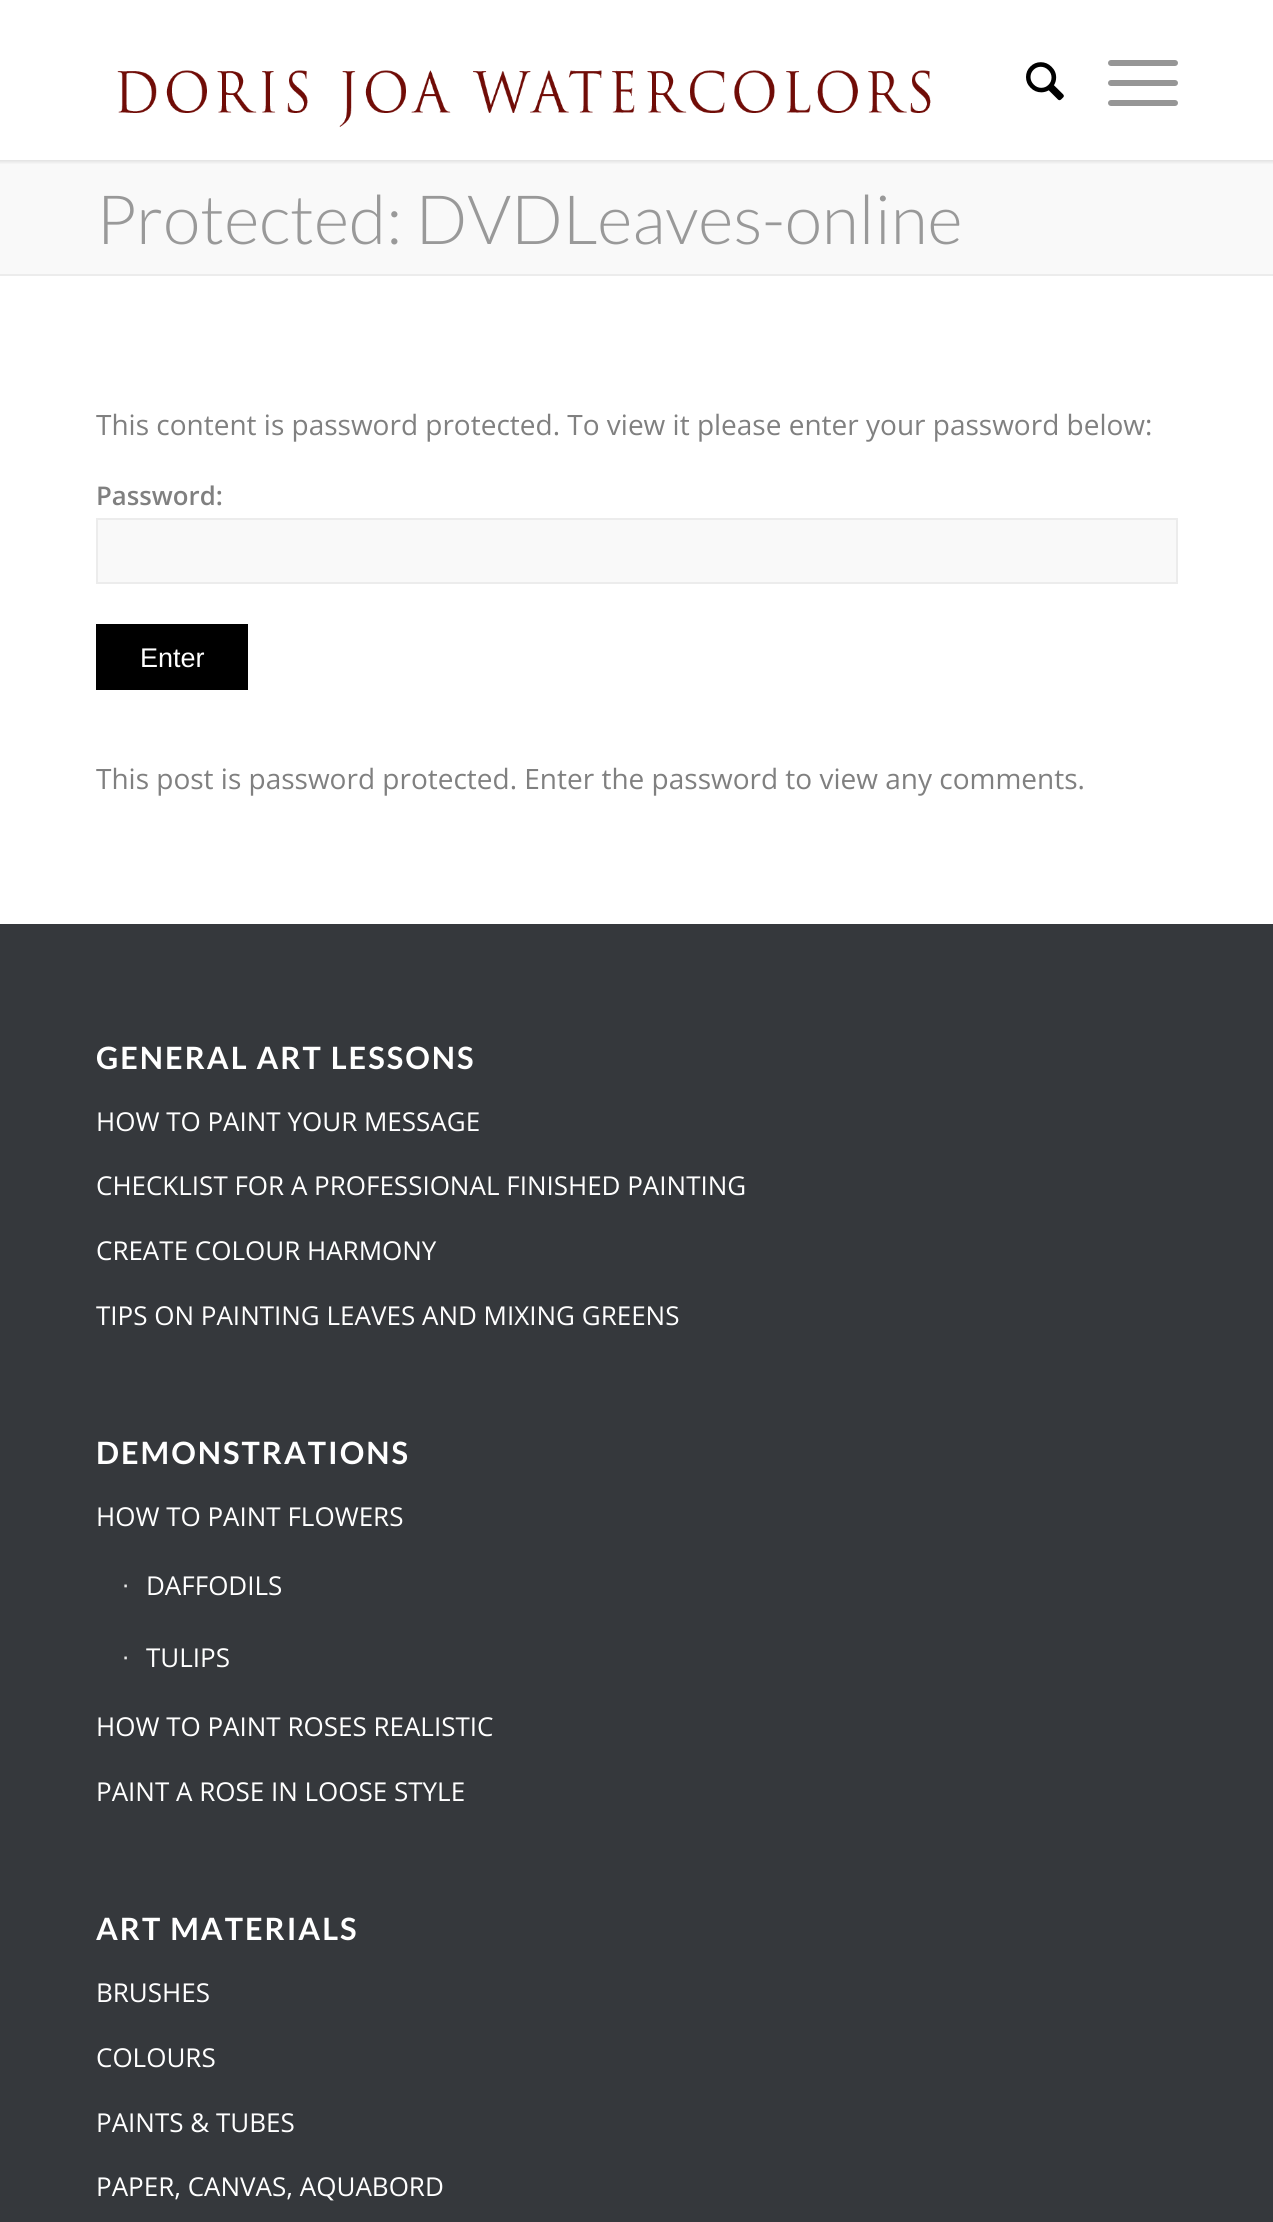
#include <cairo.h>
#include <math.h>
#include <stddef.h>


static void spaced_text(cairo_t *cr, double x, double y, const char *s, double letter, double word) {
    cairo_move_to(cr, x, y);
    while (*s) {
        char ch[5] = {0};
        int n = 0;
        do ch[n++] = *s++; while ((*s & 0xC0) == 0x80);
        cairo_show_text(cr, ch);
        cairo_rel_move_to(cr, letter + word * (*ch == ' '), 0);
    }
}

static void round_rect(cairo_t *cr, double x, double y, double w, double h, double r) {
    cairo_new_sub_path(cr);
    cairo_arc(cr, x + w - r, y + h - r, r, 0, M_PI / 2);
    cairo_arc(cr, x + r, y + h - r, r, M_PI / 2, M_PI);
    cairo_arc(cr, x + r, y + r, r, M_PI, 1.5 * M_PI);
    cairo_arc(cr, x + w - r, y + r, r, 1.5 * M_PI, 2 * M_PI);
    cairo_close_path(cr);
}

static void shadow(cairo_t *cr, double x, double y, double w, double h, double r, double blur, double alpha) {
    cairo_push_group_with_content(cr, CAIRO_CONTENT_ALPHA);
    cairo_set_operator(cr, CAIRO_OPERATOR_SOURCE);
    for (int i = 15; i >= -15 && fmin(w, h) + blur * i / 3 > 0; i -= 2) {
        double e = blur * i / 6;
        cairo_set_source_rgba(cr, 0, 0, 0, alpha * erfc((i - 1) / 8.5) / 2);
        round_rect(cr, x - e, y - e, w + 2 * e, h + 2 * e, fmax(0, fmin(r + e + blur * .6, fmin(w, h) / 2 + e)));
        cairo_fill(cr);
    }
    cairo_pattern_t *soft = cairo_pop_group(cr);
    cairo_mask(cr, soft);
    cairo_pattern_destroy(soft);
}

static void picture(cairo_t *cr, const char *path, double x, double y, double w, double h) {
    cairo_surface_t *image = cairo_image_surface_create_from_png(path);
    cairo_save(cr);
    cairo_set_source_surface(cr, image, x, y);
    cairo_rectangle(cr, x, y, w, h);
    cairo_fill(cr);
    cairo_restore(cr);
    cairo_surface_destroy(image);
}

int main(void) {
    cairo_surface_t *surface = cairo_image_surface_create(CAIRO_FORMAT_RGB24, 1273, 2222);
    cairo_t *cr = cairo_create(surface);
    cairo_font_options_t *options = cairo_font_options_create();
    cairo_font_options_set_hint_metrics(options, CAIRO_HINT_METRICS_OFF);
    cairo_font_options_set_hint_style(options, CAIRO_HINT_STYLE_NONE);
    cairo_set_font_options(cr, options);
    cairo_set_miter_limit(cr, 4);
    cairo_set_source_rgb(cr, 1, 1, 1);
    cairo_paint(cr);
    cairo_set_source_rgb(cr, 0.973, 0.973, 0.973);
    cairo_rectangle(cr, 0, 160, 1273, 114);
    cairo_fill(cr);
    cairo_save(cr);
    cairo_rectangle(cr, 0, 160, 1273, 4);
    cairo_clip(cr);
    cairo_set_source_rgb(cr, 0, 0, 0);
    shadow(cr, -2, -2, 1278, 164, 0, 2, 0.1);
    cairo_restore(cr);
    picture(cr, "img1.png", 117, 70, 814, 57);
    picture(cr, "img2.png", 1026, 62, 38, 39);
    cairo_set_source_rgb(cr, 0.588, 0.588, 0.588);
    round_rect(cr, 1108, 80, 70, 6, 3);
    cairo_fill(cr);
    round_rect(cr, 1108, 60, 70, 6, 3);
    cairo_fill(cr);
    round_rect(cr, 1108, 100, 70, 6, 3);
    cairo_fill(cr);
    cairo_select_font_face(cr, "Lato Light", CAIRO_FONT_SLANT_NORMAL, CAIRO_FONT_WEIGHT_NORMAL);
    cairo_set_font_size(cr, 68);
    cairo_set_source_rgb(cr, 0.6, 0.6, 0.6);
    cairo_move_to(cr, 96, 244);
    cairo_show_text(cr, "Protected: DVDLeaves-online");
    cairo_set_source_rgb(cr, 0.922, 0.922, 0.922);
    cairo_rectangle(cr, 0, 274, 1273, 2);
    cairo_fill(cr);
    cairo_select_font_face(cr, "Open Sans", CAIRO_FONT_SLANT_NORMAL, CAIRO_FONT_WEIGHT_NORMAL);
    cairo_set_font_size(cr, 28);
    cairo_set_source_rgb(cr, 0.502, 0.502, 0.502);
    cairo_move_to(cr, 96, 435);
    cairo_show_text(cr, "This content is password protected. To view it please enter your password below:");
    cairo_select_font_face(cr, "Open Sans SemiBold", CAIRO_FONT_SLANT_NORMAL, CAIRO_FONT_WEIGHT_NORMAL);
    cairo_set_font_size(cr, 25.75);
    cairo_move_to(cr, 96, 505);
    cairo_show_text(cr, "Password:");
    cairo_set_source_rgb(cr, 0.973, 0.973, 0.973);
    cairo_rectangle(cr, 97, 519, 1080, 64);
    cairo_fill_preserve(cr);
    cairo_set_source_rgb(cr, 0.922, 0.922, 0.922);
    cairo_stroke(cr);
    cairo_set_source_rgb(cr, 0, 0, 0);
    cairo_rectangle(cr, 96, 624, 152, 66);
    cairo_fill(cr);
    cairo_select_font_face(cr, "Liberation Sans", CAIRO_FONT_SLANT_NORMAL, CAIRO_FONT_WEIGHT_NORMAL);
    cairo_set_font_size(cr, 27);
    cairo_set_source_rgb(cr, 1, 1, 1);
    cairo_move_to(cr, 140, 667);
    cairo_show_text(cr, "Enter");
    cairo_select_font_face(cr, "Open Sans", CAIRO_FONT_SLANT_NORMAL, CAIRO_FONT_WEIGHT_NORMAL);
    cairo_set_font_size(cr, 28);
    cairo_set_source_rgb(cr, 0.502, 0.502, 0.502);
    cairo_move_to(cr, 96, 789);
    cairo_show_text(cr, "This post is password protected. Enter the password to view any comments.");
    cairo_set_source_rgb(cr, 0.208, 0.22, 0.235);
    cairo_rectangle(cr, 0, 924, 1273, 1298);
    cairo_fill(cr);
    cairo_select_font_face(cr, "Lato", CAIRO_FONT_SLANT_NORMAL, CAIRO_FONT_WEIGHT_BOLD);
    cairo_set_font_size(cr, 30.75);
    cairo_set_source_rgb(cr, 1, 1, 1);
    spaced_text(cr, 96, 1069, "GENERAL ART LESSONS", 2, 0);
    cairo_select_font_face(cr, "Open Sans", CAIRO_FONT_SLANT_NORMAL, CAIRO_FONT_WEIGHT_NORMAL);
    cairo_set_font_size(cr, 26);
    cairo_move_to(cr, 96, 1131);
    cairo_show_text(cr, "HOW TO PAINT YOUR MESSAGE");
    cairo_move_to(cr, 96, 1195);
    cairo_show_text(cr, "CHECKLIST FOR A PROFESSIONAL FINISHED PAINTING");
    cairo_move_to(cr, 96, 1260);
    cairo_show_text(cr, "CREATE COLOUR HARMONY");
    cairo_save(cr);
    cairo_rectangle(cr, 96, 1014, 1082, 336);
    cairo_clip(cr);
    cairo_move_to(cr, 96, 1325);
    cairo_show_text(cr, "TIPS ON PAINTING LEAVES AND MIXING GREENS");
    cairo_restore(cr);
    cairo_select_font_face(cr, "Lato", CAIRO_FONT_SLANT_NORMAL, CAIRO_FONT_WEIGHT_BOLD);
    cairo_set_font_size(cr, 30.75);
    spaced_text(cr, 96, 1464, "DEMONSTRATIONS", 2, 0);
    cairo_select_font_face(cr, "Open Sans", CAIRO_FONT_SLANT_NORMAL, CAIRO_FONT_WEIGHT_NORMAL);
    cairo_set_font_size(cr, 26);
    cairo_move_to(cr, 96, 1526);
    cairo_show_text(cr, "HOW TO PAINT FLOWERS");
    cairo_select_font_face(cr, "Liberation Sans", CAIRO_FONT_SLANT_NORMAL, CAIRO_FONT_WEIGHT_NORMAL);
    cairo_set_source_rgb(cr, 0.91, 0.91, 0.91);
    cairo_move_to(cr, 122, 1593);
    cairo_show_text(cr, "∙");
    cairo_select_font_face(cr, "Open Sans", CAIRO_FONT_SLANT_NORMAL, CAIRO_FONT_WEIGHT_NORMAL);
    cairo_set_source_rgb(cr, 1, 1, 1);
    cairo_move_to(cr, 146, 1595);
    cairo_show_text(cr, "DAFFODILS");
    cairo_select_font_face(cr, "Liberation Sans", CAIRO_FONT_SLANT_NORMAL, CAIRO_FONT_WEIGHT_NORMAL);
    cairo_set_source_rgb(cr, 0.91, 0.91, 0.91);
    cairo_move_to(cr, 122, 1665);
    cairo_show_text(cr, "∙");
    cairo_select_font_face(cr, "Open Sans", CAIRO_FONT_SLANT_NORMAL, CAIRO_FONT_WEIGHT_NORMAL);
    cairo_set_source_rgb(cr, 1, 1, 1);
    cairo_move_to(cr, 146, 1667);
    cairo_show_text(cr, "TULIPS");
    cairo_move_to(cr, 96, 1736);
    cairo_show_text(cr, "HOW TO PAINT ROSES REALISTIC");
    cairo_move_to(cr, 96, 1801);
    cairo_show_text(cr, "PAINT A ROSE IN LOOSE STYLE");
    cairo_select_font_face(cr, "Lato", CAIRO_FONT_SLANT_NORMAL, CAIRO_FONT_WEIGHT_BOLD);
    cairo_set_font_size(cr, 30.75);
    spaced_text(cr, 96, 1940, "ART MATERIALS", 2, 0);
    cairo_select_font_face(cr, "Open Sans", CAIRO_FONT_SLANT_NORMAL, CAIRO_FONT_WEIGHT_NORMAL);
    cairo_set_font_size(cr, 26);
    cairo_move_to(cr, 96, 2002);
    cairo_show_text(cr, "BRUSHES");
    cairo_move_to(cr, 96, 2067);
    cairo_show_text(cr, "COLOURS");
    cairo_move_to(cr, 96, 2132);
    cairo_show_text(cr, "PAINTS & TUBES");
    cairo_move_to(cr, 96, 2196);
    cairo_show_text(cr, "PAPER, CANVAS, AQUABORD");
    cairo_surface_write_to_png(surface, "page.png");
    cairo_font_options_destroy(options);
    cairo_destroy(cr);
    cairo_surface_destroy(surface);
    return 0;
}
